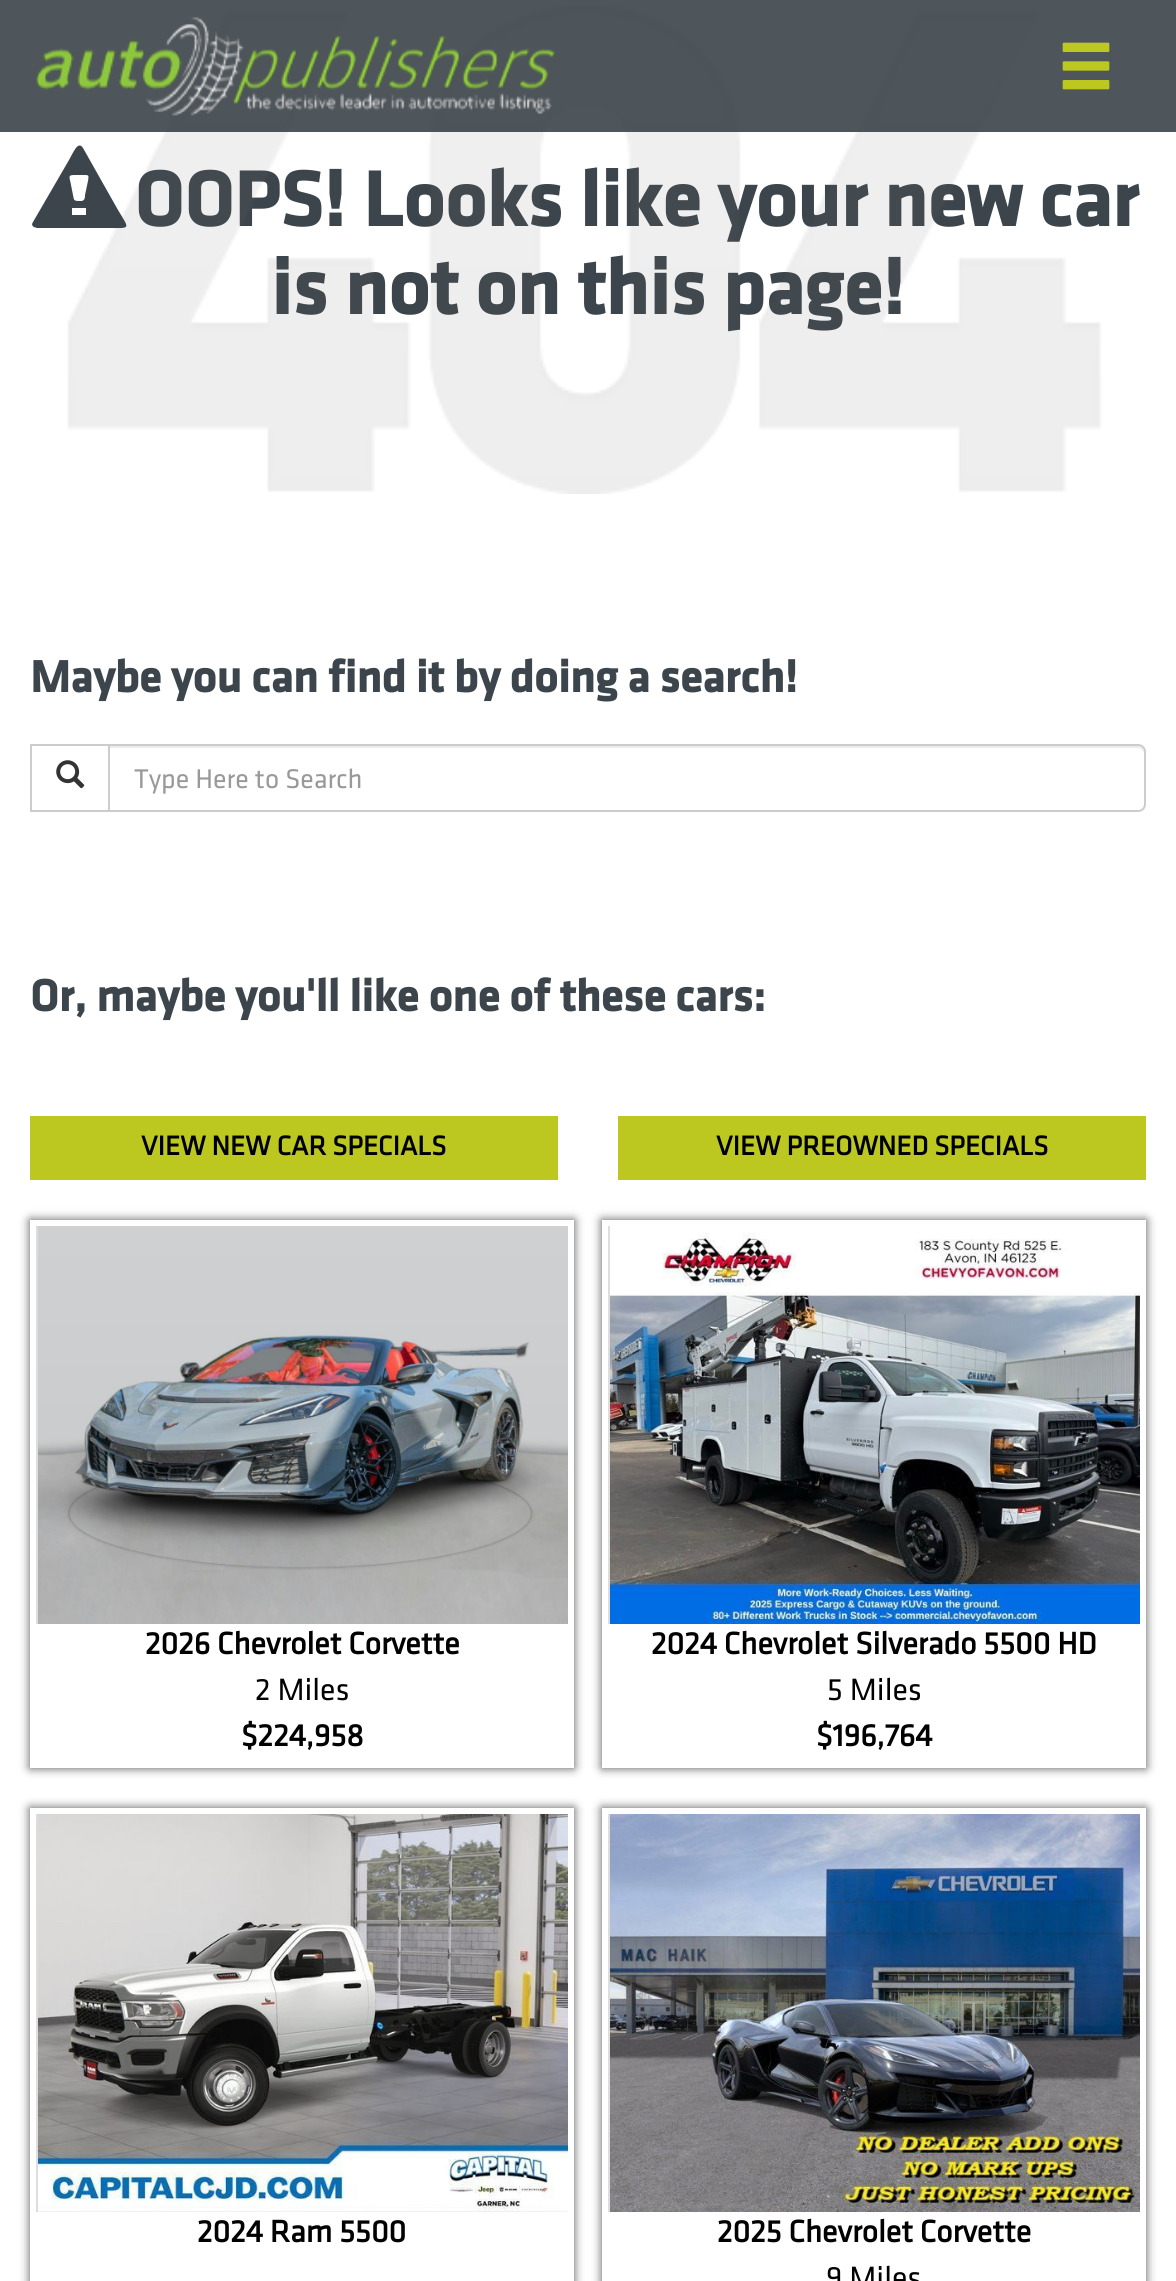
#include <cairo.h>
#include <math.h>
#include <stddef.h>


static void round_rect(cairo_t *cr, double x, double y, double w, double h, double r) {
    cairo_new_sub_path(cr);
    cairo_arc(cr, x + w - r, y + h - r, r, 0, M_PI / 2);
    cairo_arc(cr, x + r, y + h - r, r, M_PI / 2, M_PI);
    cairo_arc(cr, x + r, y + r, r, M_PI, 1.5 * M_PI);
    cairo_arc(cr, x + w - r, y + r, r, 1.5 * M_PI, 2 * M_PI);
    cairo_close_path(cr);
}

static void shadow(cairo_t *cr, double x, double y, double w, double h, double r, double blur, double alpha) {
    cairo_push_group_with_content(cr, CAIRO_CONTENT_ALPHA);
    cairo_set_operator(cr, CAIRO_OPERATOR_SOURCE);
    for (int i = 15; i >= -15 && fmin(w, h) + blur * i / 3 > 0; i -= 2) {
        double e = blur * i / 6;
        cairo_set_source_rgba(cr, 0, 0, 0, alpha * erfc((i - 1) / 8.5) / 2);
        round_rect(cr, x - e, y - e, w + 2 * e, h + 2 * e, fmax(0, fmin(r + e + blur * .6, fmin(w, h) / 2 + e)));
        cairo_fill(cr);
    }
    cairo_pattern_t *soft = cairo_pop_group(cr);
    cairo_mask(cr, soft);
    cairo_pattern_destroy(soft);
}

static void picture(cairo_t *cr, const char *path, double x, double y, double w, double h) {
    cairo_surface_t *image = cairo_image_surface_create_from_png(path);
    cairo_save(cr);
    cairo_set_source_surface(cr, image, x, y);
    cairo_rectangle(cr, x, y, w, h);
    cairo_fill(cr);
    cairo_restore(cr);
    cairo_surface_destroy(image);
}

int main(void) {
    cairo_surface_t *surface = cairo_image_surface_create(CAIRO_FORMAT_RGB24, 1176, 2281);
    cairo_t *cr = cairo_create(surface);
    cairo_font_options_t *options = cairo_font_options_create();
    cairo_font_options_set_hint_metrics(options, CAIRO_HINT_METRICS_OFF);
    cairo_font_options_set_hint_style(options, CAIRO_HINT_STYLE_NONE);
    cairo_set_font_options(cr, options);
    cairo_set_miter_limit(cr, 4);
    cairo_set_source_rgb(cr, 1, 1, 1);
    cairo_paint(cr);
    cairo_select_font_face(cr, "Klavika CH", CAIRO_FONT_SLANT_NORMAL, CAIRO_FONT_WEIGHT_BOLD);
    cairo_set_font_size(cr, 80);
    cairo_set_source_rgb(cr, 0.235, 0.271, 0.294);
    cairo_move_to(cr, 134, 226);
    cairo_show_text(cr, "OOPS! Looks like your new car");
    cairo_move_to(cr, 271, 314);
    cairo_show_text(cr, "is not on this page!");
    picture(cr, "img3.png", 67, 4, 1035, 490);
    cairo_set_source_rgba(cr, 0.231, 0.267, 0.294, 0.9);
    cairo_rectangle(cr, 0, 0, 1176, 132);
    cairo_fill(cr);
    picture(cr, "img1.png", 36, 17, 519, 99);
    picture(cr, "img2.png", 1062, 42, 48, 48);
    cairo_set_source_rgb(cr, 0.235, 0.271, 0.294);
    cairo_new_path(cr);
    cairo_move_to(cr, 83, 148);
    cairo_line_to(cr, 118, 210);
    cairo_curve_to(cr, 130, 230, 131, 228, 108, 228);
    cairo_line_to(cr, 37, 228);
    cairo_line_to(cr, 34, 227);
    cairo_curve_to(cr, 33, 227, 32, 225, 32, 224);
    cairo_line_to(cr, 33, 222);
    cairo_line_to(cr, 69, 160);
    cairo_curve_to(cr, 73, 153, 78, 140, 83, 148);
    cairo_close_path(cr);
    cairo_move_to(cr, 86, 175);
    cairo_line_to(cr, 74, 175);
    cairo_curve_to(cr, 67, 175, 70, 178, 71, 185);
    cairo_line_to(cr, 73, 195);
    cairo_curve_to(cr, 74, 201, 74, 201, 81, 201);
    cairo_curve_to(cr, 85, 201, 85, 197, 85, 195);
    cairo_line_to(cr, 88, 181);
    cairo_curve_to(cr, 88, 179, 90, 175, 86, 175);
    cairo_close_path(cr);
    cairo_move_to(cr, 72, 208);
    cairo_line_to(cr, 72, 215);
    cairo_line_to(cr, 86, 215);
    cairo_line_to(cr, 86, 208);
    cairo_close_path(cr);
    cairo_fill(cr);
    cairo_set_font_size(cr, 46);
    cairo_move_to(cr, 30, 692);
    cairo_show_text(cr, "Maybe you can find it by doing a search!");
    cairo_rectangle(cr, 31, 745, 78, 66);
    cairo_set_source_rgb(cr, 0.8, 0.8, 0.8);
    cairo_stroke(cr);
    picture(cr, "img4.png", 56, 760, 29, 29);
    cairo_set_source_rgb(cr, 1, 1, 1);
    cairo_new_path(cr);
    cairo_move_to(cr, 108, 744);
    cairo_line_to(cr, 1138, 744);
    cairo_curve_to(cr, 1142.5, 744, 1146, 747.5, 1146, 752);
    cairo_line_to(cr, 1146, 804);
    cairo_curve_to(cr, 1146, 808.5, 1142.5, 812, 1138, 812);
    cairo_line_to(cr, 108, 812);
    cairo_close_path(cr);
    cairo_fill(cr);
    cairo_set_source_rgb(cr, 0.925, 0.925, 0.925);
    cairo_new_path(cr);
    cairo_move_to(cr, 110, 748);
    cairo_line_to(cr, 1138, 748);
    cairo_curve_to(cr, 1141, 748, 1144, 751, 1144, 754);
    cairo_curve_to(cr, 1144, 750, 1143, 746, 1138, 746);
    cairo_line_to(cr, 110, 746);
    cairo_close_path(cr);
    cairo_fill(cr);
    cairo_new_path(cr);
    cairo_move_to(cr, 109, 745);
    cairo_line_to(cr, 1138, 745);
    cairo_curve_to(cr, 1142, 745, 1145, 748, 1145, 752);
    cairo_line_to(cr, 1145, 804);
    cairo_curve_to(cr, 1145, 808, 1142, 811, 1138, 811);
    cairo_line_to(cr, 109, 811);
    cairo_close_path(cr);
    cairo_set_source_rgb(cr, 0.8, 0.8, 0.8);
    cairo_stroke(cr);
    cairo_select_font_face(cr, "Klavika CH", CAIRO_FONT_SLANT_NORMAL, CAIRO_FONT_WEIGHT_NORMAL);
    cairo_set_font_size(cr, 28);
    cairo_set_source_rgb(cr, 0.6, 0.6, 0.6);
    cairo_move_to(cr, 134, 788);
    cairo_show_text(cr, "Type Here to Search");
    cairo_select_font_face(cr, "Klavika CH", CAIRO_FONT_SLANT_NORMAL, CAIRO_FONT_WEIGHT_BOLD);
    cairo_set_font_size(cr, 46);
    cairo_set_source_rgb(cr, 0.235, 0.271, 0.294);
    cairo_move_to(cr, 30, 1011);
    cairo_show_text(cr, "Or, maybe you'll like one of these cars:");
    cairo_set_source_rgb(cr, 0.737, 0.784, 0.125);
    cairo_rectangle(cr, 30, 1116, 528, 64);
    cairo_fill(cr);
    cairo_select_font_face(cr, "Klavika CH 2", CAIRO_FONT_SLANT_NORMAL, CAIRO_FONT_WEIGHT_BOLD);
    cairo_set_font_size(cr, 28);
    cairo_set_source_rgb(cr, 0, 0, 0);
    cairo_move_to(cr, 141, 1155);
    cairo_show_text(cr, "VIEW NEW CAR SPECIALS");
    cairo_set_source_rgb(cr, 0.737, 0.784, 0.125);
    cairo_rectangle(cr, 618, 1116, 528, 64);
    cairo_fill(cr);
    cairo_set_source_rgb(cr, 0, 0, 0);
    cairo_move_to(cr, 716, 1155);
    cairo_show_text(cr, "VIEW PREOWNED SPECIALS");
    cairo_save(cr);
    cairo_set_fill_rule(cr, CAIRO_FILL_RULE_EVEN_ODD);
    cairo_new_path(cr);
    cairo_move_to(cr, 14, 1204);
    cairo_line_to(cr, 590, 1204);
    cairo_line_to(cr, 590, 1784);
    cairo_line_to(cr, 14, 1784);
    cairo_close_path(cr);
    cairo_move_to(cr, 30, 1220);
    cairo_line_to(cr, 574, 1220);
    cairo_line_to(cr, 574, 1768);
    cairo_line_to(cr, 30, 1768);
    cairo_close_path(cr);
    cairo_clip(cr);
    cairo_set_source_rgb(cr, 0.333, 0.333, 0.333);
    shadow(cr, 30, 1220, 544, 548, 0, 5, 1);
    cairo_restore(cr);
    cairo_set_source_rgb(cr, 0.867, 0.867, 0.867);
    cairo_rectangle(cr, 36, 1226, 2, 398);
    cairo_fill(cr);
    picture(cr, "img5.png", 38, 1226, 530, 398);
    cairo_set_font_size(cr, 32);
    cairo_set_source_rgb(cr, 0, 0, 0);
    cairo_move_to(cr, 145, 1654);
    cairo_show_text(cr, "2026 Chevrolet Corvette");
    cairo_select_font_face(cr, "Klavika CH", CAIRO_FONT_SLANT_NORMAL, CAIRO_FONT_WEIGHT_NORMAL);
    cairo_move_to(cr, 255, 1700);
    cairo_show_text(cr, "2 Miles");
    cairo_select_font_face(cr, "Klavika CH 2", CAIRO_FONT_SLANT_NORMAL, CAIRO_FONT_WEIGHT_BOLD);
    cairo_move_to(cr, 241, 1746);
    cairo_show_text(cr, "$224,958");
    cairo_save(cr);
    cairo_set_fill_rule(cr, CAIRO_FILL_RULE_EVEN_ODD);
    cairo_new_path(cr);
    cairo_move_to(cr, 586, 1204);
    cairo_line_to(cr, 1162, 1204);
    cairo_line_to(cr, 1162, 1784);
    cairo_line_to(cr, 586, 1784);
    cairo_close_path(cr);
    cairo_move_to(cr, 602, 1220);
    cairo_line_to(cr, 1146, 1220);
    cairo_line_to(cr, 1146, 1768);
    cairo_line_to(cr, 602, 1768);
    cairo_close_path(cr);
    cairo_clip(cr);
    cairo_set_source_rgb(cr, 0.333, 0.333, 0.333);
    shadow(cr, 602, 1220, 544, 548, 0, 5, 1);
    cairo_restore(cr);
    cairo_set_source_rgb(cr, 0.867, 0.867, 0.867);
    cairo_rectangle(cr, 608, 1226, 2, 398);
    cairo_fill(cr);
    picture(cr, "img6.png", 610, 1226, 530, 398);
    cairo_set_source_rgb(cr, 0, 0, 0);
    cairo_move_to(cr, 651, 1654);
    cairo_show_text(cr, "2024 Chevrolet Silverado 5500 HD");
    cairo_select_font_face(cr, "Klavika CH", CAIRO_FONT_SLANT_NORMAL, CAIRO_FONT_WEIGHT_NORMAL);
    cairo_move_to(cr, 827, 1700);
    cairo_show_text(cr, "5 Miles");
    cairo_select_font_face(cr, "Klavika CH 2", CAIRO_FONT_SLANT_NORMAL, CAIRO_FONT_WEIGHT_BOLD);
    cairo_move_to(cr, 816, 1746);
    cairo_show_text(cr, "$196,764");
    cairo_save(cr);
    cairo_set_fill_rule(cr, CAIRO_FILL_RULE_EVEN_ODD);
    cairo_new_path(cr);
    cairo_move_to(cr, 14, 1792);
    cairo_line_to(cr, 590, 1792);
    cairo_line_to(cr, 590, 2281);
    cairo_line_to(cr, 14, 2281);
    cairo_close_path(cr);
    cairo_move_to(cr, 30, 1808);
    cairo_line_to(cr, 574, 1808);
    cairo_line_to(cr, 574, 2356);
    cairo_line_to(cr, 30, 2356);
    cairo_close_path(cr);
    cairo_clip(cr);
    cairo_set_source_rgb(cr, 0.333, 0.333, 0.333);
    shadow(cr, 30, 1808, 544, 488, 0, 5, 1);
    cairo_restore(cr);
    cairo_set_source_rgb(cr, 0.867, 0.867, 0.867);
    cairo_rectangle(cr, 36, 1814, 2, 398);
    cairo_fill(cr);
    picture(cr, "img7.png", 38, 1814, 530, 398);
    cairo_set_source_rgb(cr, 0, 0, 0);
    cairo_move_to(cr, 197, 2242);
    cairo_show_text(cr, "2024 Ram 5500");
    cairo_save(cr);
    cairo_set_fill_rule(cr, CAIRO_FILL_RULE_EVEN_ODD);
    cairo_new_path(cr);
    cairo_move_to(cr, 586, 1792);
    cairo_line_to(cr, 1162, 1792);
    cairo_line_to(cr, 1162, 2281);
    cairo_line_to(cr, 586, 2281);
    cairo_close_path(cr);
    cairo_move_to(cr, 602, 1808);
    cairo_line_to(cr, 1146, 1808);
    cairo_line_to(cr, 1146, 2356);
    cairo_line_to(cr, 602, 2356);
    cairo_close_path(cr);
    cairo_clip(cr);
    cairo_set_source_rgb(cr, 0.333, 0.333, 0.333);
    shadow(cr, 602, 1808, 544, 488, 0, 5, 1);
    cairo_restore(cr);
    cairo_set_source_rgb(cr, 0.867, 0.867, 0.867);
    cairo_rectangle(cr, 608, 1814, 2, 398);
    cairo_fill(cr);
    picture(cr, "img8.png", 610, 1814, 530, 398);
    cairo_set_source_rgb(cr, 0, 0, 0);
    cairo_move_to(cr, 717, 2242);
    cairo_show_text(cr, "2025 Chevrolet Corvette");
    cairo_select_font_face(cr, "Klavika CH", CAIRO_FONT_SLANT_NORMAL, CAIRO_FONT_WEIGHT_NORMAL);
    cairo_move_to(cr, 826, 2288);
    cairo_show_text(cr, "9 Miles");
    cairo_surface_write_to_png(surface, "page.png");
    cairo_font_options_destroy(options);
    cairo_destroy(cr);
    cairo_surface_destroy(surface);
    return 0;
}
